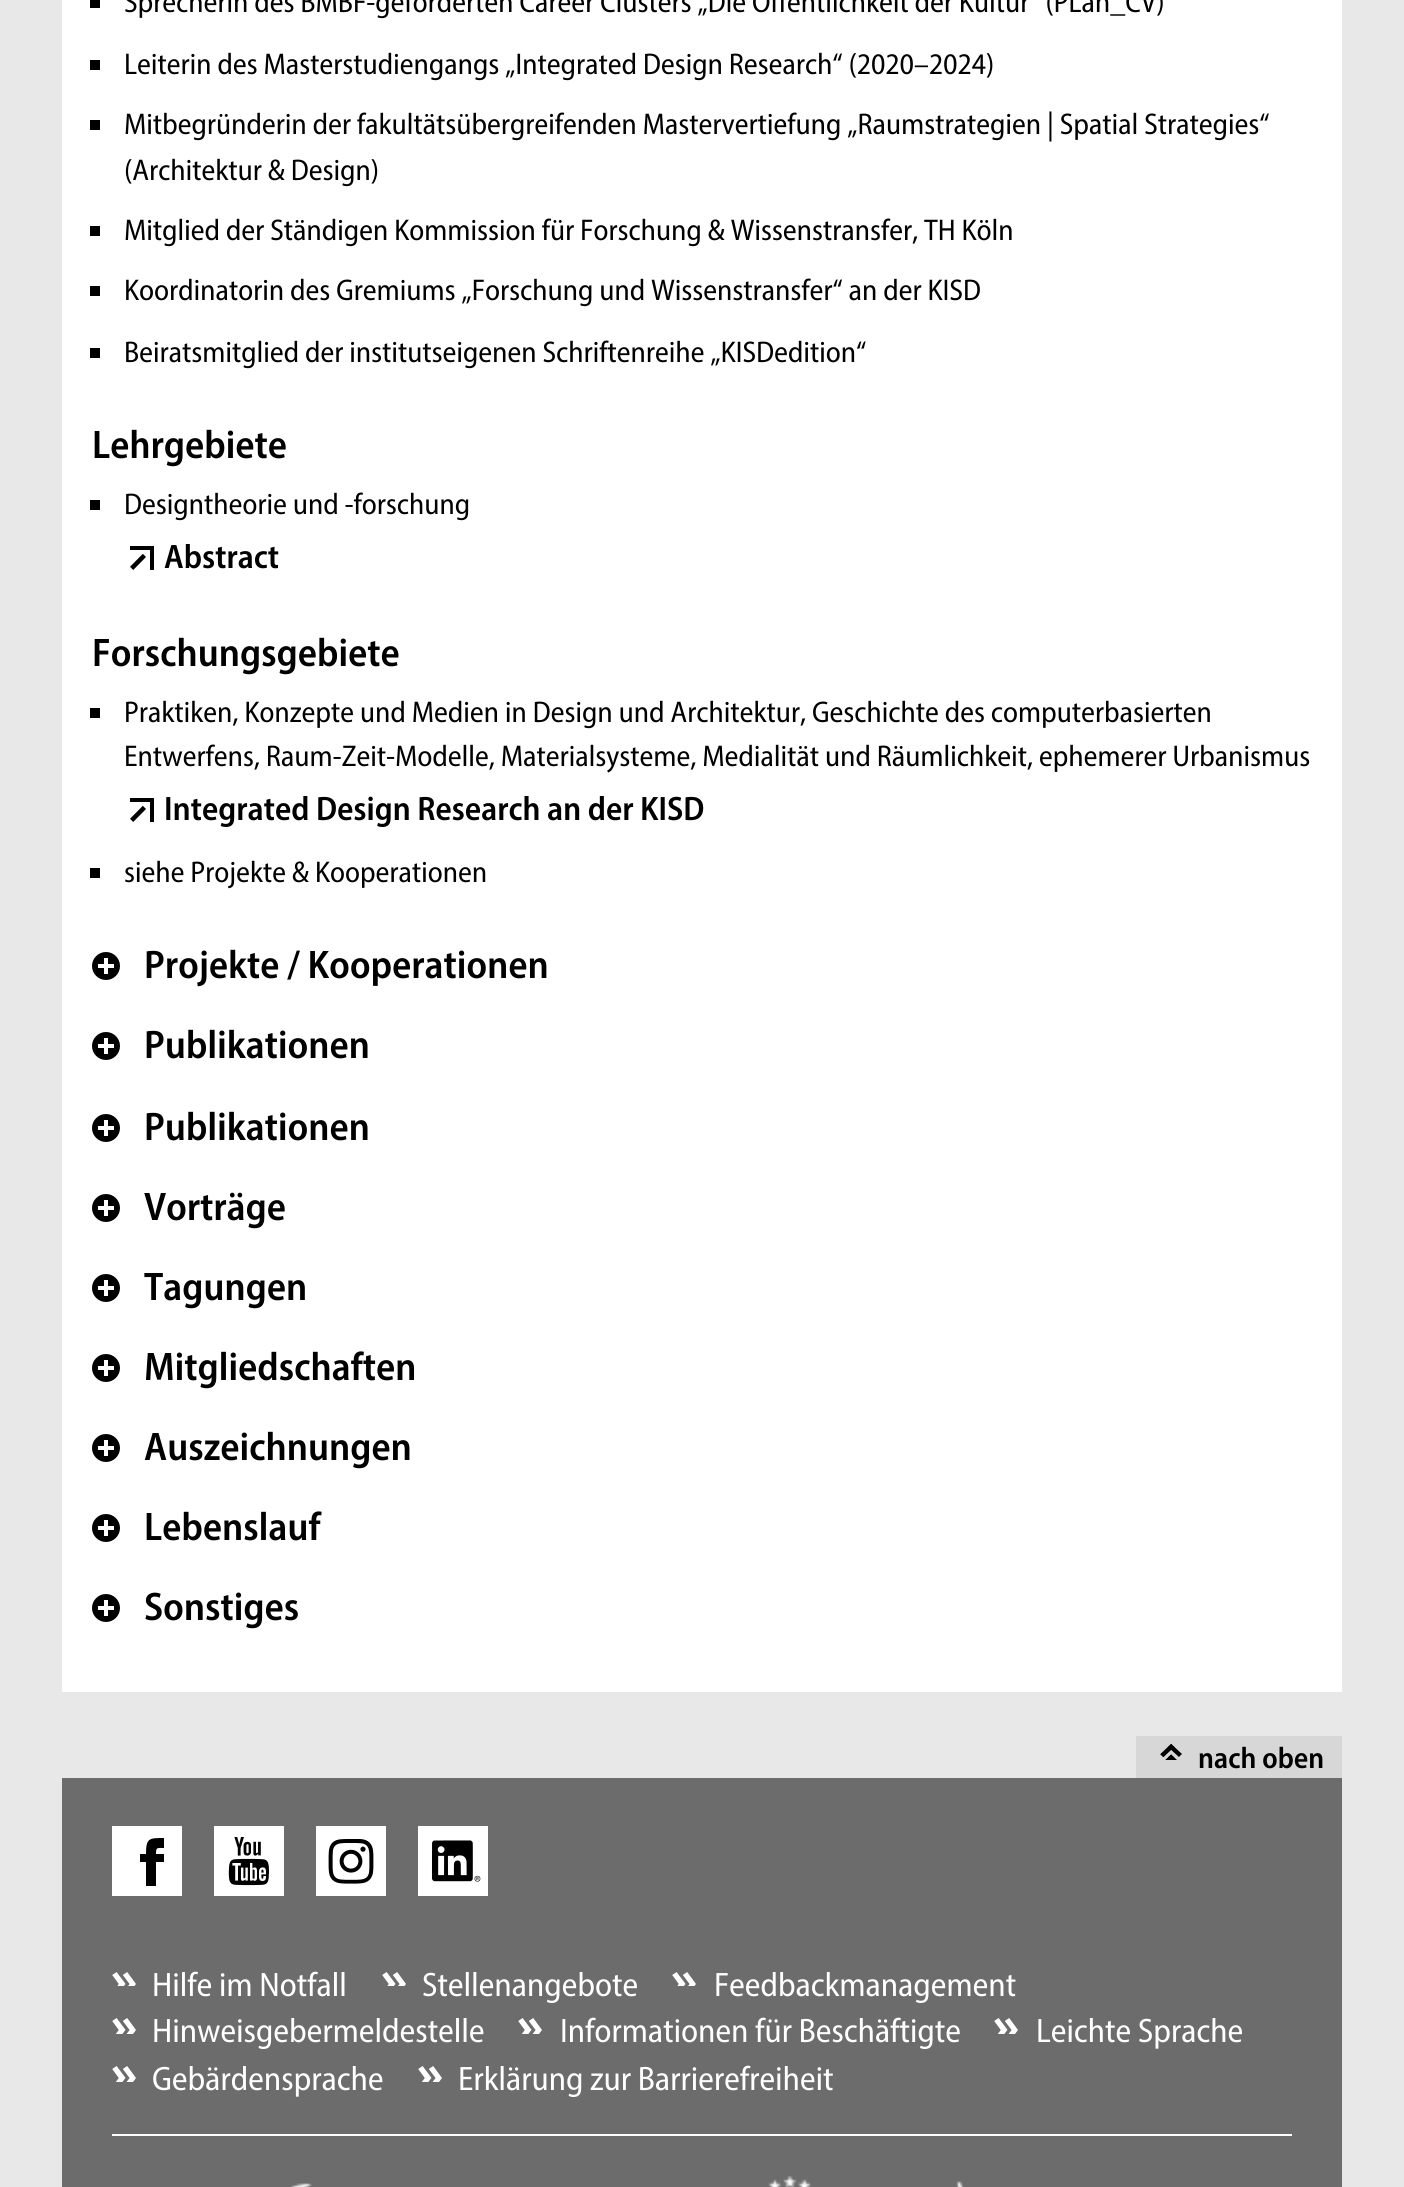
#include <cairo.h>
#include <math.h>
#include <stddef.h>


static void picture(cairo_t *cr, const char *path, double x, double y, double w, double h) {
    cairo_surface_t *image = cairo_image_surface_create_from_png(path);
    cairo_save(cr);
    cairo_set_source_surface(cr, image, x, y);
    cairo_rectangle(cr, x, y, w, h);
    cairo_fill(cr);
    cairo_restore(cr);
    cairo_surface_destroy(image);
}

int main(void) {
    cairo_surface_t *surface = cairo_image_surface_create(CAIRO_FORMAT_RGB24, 1404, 2187);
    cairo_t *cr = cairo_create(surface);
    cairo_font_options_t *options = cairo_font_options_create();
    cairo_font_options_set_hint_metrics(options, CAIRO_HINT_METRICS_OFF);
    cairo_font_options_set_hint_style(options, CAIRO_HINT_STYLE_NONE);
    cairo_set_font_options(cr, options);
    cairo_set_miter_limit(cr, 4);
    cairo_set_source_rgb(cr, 0.91, 0.91, 0.91);
    cairo_paint(cr);
    cairo_set_source_rgb(cr, 1, 1, 1);
    cairo_rectangle(cr, 62, 0, 1280, 1692);
    cairo_fill(cr);
    cairo_set_source_rgb(cr, 0, 0, 0);
    cairo_rectangle(cr, 90, 0, 10, 8);
    cairo_fill(cr);
    picture(cr, "img1.png", 125, 0, 1038, 19);
    cairo_rectangle(cr, 90, 60, 10, 10);
    cairo_fill(cr);
    picture(cr, "img2.png", 126, 52, 867, 29);
    cairo_rectangle(cr, 90, 120, 10, 10);
    cairo_fill(cr);
    picture(cr, "img3.png", 125, 111, 1144, 31);
    picture(cr, "img4.png", 125, 158, 253, 29);
    cairo_rectangle(cr, 90, 226, 10, 10);
    cairo_fill(cr);
    picture(cr, "img5.png", 125, 218, 887, 29);
    cairo_rectangle(cr, 90, 286, 10, 10);
    cairo_fill(cr);
    picture(cr, "img6.png", 126, 278, 854, 29);
    cairo_rectangle(cr, 90, 348, 10, 10);
    cairo_fill(cr);
    picture(cr, "img7.png", 126, 340, 740, 29);
    picture(cr, "img8.png", 94, 429, 192, 38);
    cairo_rectangle(cr, 90, 500, 10, 10);
    cairo_fill(cr);
    picture(cr, "img9.png", 126, 492, 343, 29);
    picture(cr, "img10.png", 130, 546, 24, 24);
    picture(cr, "img11.png", 164, 544, 115, 25);
    picture(cr, "img12.png", 94, 637, 305, 38);
    cairo_rectangle(cr, 90, 708, 10, 10);
    cairo_fill(cr);
    picture(cr, "img13.png", 126, 700, 1084, 29);
    picture(cr, "img14.png", 126, 744, 1184, 29);
    picture(cr, "img10.png", 130, 798, 24, 24);
    picture(cr, "img15.png", 166, 796, 538, 31);
    cairo_rectangle(cr, 90, 868, 10, 10);
    cairo_fill(cr);
    picture(cr, "img16.png", 125, 860, 361, 29);
    cairo_arc(cr, 106, 966, 14, 0, 2 * M_PI);
    cairo_fill(cr);
    cairo_set_source_rgb(cr, 1, 1, 1);
    cairo_rectangle(cr, 104, 958, 4, 16);
    cairo_fill(cr);
    cairo_rectangle(cr, 98, 964, 16, 4);
    cairo_fill(cr);
    picture(cr, "img17.png", 146, 949, 401, 38);
    cairo_set_source_rgb(cr, 0, 0, 0);
    cairo_arc(cr, 106, 1046, 14, 0, 2 * M_PI);
    cairo_fill(cr);
    cairo_set_source_rgb(cr, 1, 1, 1);
    cairo_rectangle(cr, 104, 1038, 4, 16);
    cairo_fill(cr);
    cairo_rectangle(cr, 98, 1044, 16, 4);
    cairo_fill(cr);
    picture(cr, "img18.png", 146, 1029, 222, 30);
    cairo_set_source_rgb(cr, 0, 0, 0);
    cairo_arc(cr, 106, 1128, 14, 0, 2 * M_PI);
    cairo_fill(cr);
    cairo_set_source_rgb(cr, 1, 1, 1);
    cairo_rectangle(cr, 104, 1120, 4, 16);
    cairo_fill(cr);
    cairo_rectangle(cr, 98, 1126, 16, 4);
    cairo_fill(cr);
    picture(cr, "img18.png", 146, 1111, 222, 30);
    cairo_set_source_rgb(cr, 0, 0, 0);
    cairo_arc(cr, 106, 1208, 14, 0, 2 * M_PI);
    cairo_fill(cr);
    cairo_set_source_rgb(cr, 1, 1, 1);
    cairo_rectangle(cr, 104, 1200, 4, 16);
    cairo_fill(cr);
    cairo_rectangle(cr, 98, 1206, 16, 4);
    cairo_fill(cr);
    picture(cr, "img19.png", 144, 1192, 141, 37);
    cairo_set_source_rgb(cr, 0, 0, 0);
    cairo_arc(cr, 106, 1288, 14, 0, 2 * M_PI);
    cairo_fill(cr);
    cairo_set_source_rgb(cr, 1, 1, 1);
    cairo_rectangle(cr, 104, 1280, 4, 16);
    cairo_fill(cr);
    cairo_rectangle(cr, 98, 1286, 16, 4);
    cairo_fill(cr);
    picture(cr, "img20.png", 144, 1273, 161, 36);
    cairo_set_source_rgb(cr, 0, 0, 0);
    cairo_arc(cr, 106, 1368, 14, 0, 2 * M_PI);
    cairo_fill(cr);
    cairo_set_source_rgb(cr, 1, 1, 1);
    cairo_rectangle(cr, 104, 1360, 4, 16);
    cairo_fill(cr);
    cairo_rectangle(cr, 98, 1366, 16, 4);
    cairo_fill(cr);
    picture(cr, "img21.png", 146, 1351, 269, 38);
    cairo_set_source_rgb(cr, 0, 0, 0);
    cairo_arc(cr, 106, 1448, 14, 0, 2 * M_PI);
    cairo_fill(cr);
    cairo_set_source_rgb(cr, 1, 1, 1);
    cairo_rectangle(cr, 104, 1440, 4, 16);
    cairo_fill(cr);
    cairo_rectangle(cr, 98, 1446, 16, 4);
    cairo_fill(cr);
    picture(cr, "img22.png", 144, 1431, 266, 38);
    cairo_set_source_rgb(cr, 0, 0, 0);
    cairo_arc(cr, 106, 1528, 14, 0, 2 * M_PI);
    cairo_fill(cr);
    cairo_set_source_rgb(cr, 1, 1, 1);
    cairo_rectangle(cr, 104, 1520, 4, 16);
    cairo_fill(cr);
    cairo_rectangle(cr, 98, 1526, 16, 4);
    cairo_fill(cr);
    picture(cr, "img23.png", 146, 1511, 176, 30);
    cairo_set_source_rgb(cr, 0, 0, 0);
    cairo_arc(cr, 106, 1608, 14, 0, 2 * M_PI);
    cairo_fill(cr);
    cairo_set_source_rgb(cr, 1, 1, 1);
    cairo_rectangle(cr, 104, 1600, 4, 16);
    cairo_fill(cr);
    cairo_rectangle(cr, 98, 1606, 16, 4);
    cairo_fill(cr);
    picture(cr, "img24.png", 145, 1592, 153, 37);
    cairo_set_source_rgb(cr, 0.843, 0.843, 0.843);
    cairo_rectangle(cr, 1136, 1736, 206, 42);
    cairo_fill(cr);
    picture(cr, "img25.png", 1160, 1744, 22, 16);
    picture(cr, "img26.png", 1199, 1746, 124, 23);
    cairo_set_source_rgb(cr, 0.424, 0.424, 0.424);
    cairo_rectangle(cr, 62, 1778, 1280, 409);
    cairo_fill(cr);
    cairo_set_source_rgb(cr, 1, 1, 1);
    cairo_rectangle(cr, 112, 1826, 70, 70);
    cairo_fill(cr);
    cairo_set_source_rgb(cr, 0, 0, 0);
    cairo_new_path(cr);
    cairo_move_to(cr, 146, 1854);
    cairo_line_to(cr, 140, 1854);
    cairo_line_to(cr, 140, 1862);
    cairo_line_to(cr, 146, 1862);
    cairo_line_to(cr, 146, 1886);
    cairo_line_to(cr, 156, 1886);
    cairo_line_to(cr, 156, 1862);
    cairo_line_to(cr, 164, 1862);
    cairo_line_to(cr, 164, 1854);
    cairo_line_to(cr, 156, 1854);
    cairo_curve_to(cr, 156, 1847, 157, 1848, 164, 1848);
    cairo_line_to(cr, 164, 1838);
    cairo_curve_to(cr, 149, 1838, 146, 1838, 146, 1854);
    cairo_close_path(cr);
    cairo_fill(cr);
    picture(cr, "img27.png", 214, 1826, 70, 70);
    picture(cr, "img28.png", 316, 1826, 70, 70);
    picture(cr, "img29.png", 418, 1826, 70, 70);
    picture(cr, "img30.png", 112, 1972, 24, 14);
    picture(cr, "img31.png", 154, 1971, 191, 26);
    picture(cr, "img30.png", 382, 1972, 24, 14);
    picture(cr, "img32.png", 423, 1972, 214, 31);
    picture(cr, "img30.png", 672, 1972, 24, 14);
    picture(cr, "img33.png", 716, 1972, 300, 31);
    picture(cr, "img34.png", 112, 2018, 24, 16);
    picture(cr, "img35.png", 154, 2018, 330, 31);
    picture(cr, "img34.png", 518, 2018, 24, 16);
    picture(cr, "img36.png", 562, 2017, 398, 32);
    picture(cr, "img37.png", 994, 2018, 24, 16);
    picture(cr, "img38.png", 1038, 2018, 204, 31);
    picture(cr, "img34.png", 112, 2066, 24, 16);
    picture(cr, "img39.png", 153, 2066, 230, 31);
    picture(cr, "img34.png", 418, 2066, 24, 16);
    picture(cr, "img40.png", 460, 2065, 373, 32);
    cairo_set_source_rgb(cr, 1, 1, 1);
    cairo_rectangle(cr, 112, 2134, 1180, 2);
    cairo_fill(cr);
    picture(cr, "img41.png", 290, 2183, 22, 4);
    picture(cr, "img42.png", 768, 2176, 43, 11);
    picture(cr, "img43.png", 956, 2181, 8, 6);
    cairo_surface_write_to_png(surface, "page.png");
    cairo_font_options_destroy(options);
    cairo_destroy(cr);
    cairo_surface_destroy(surface);
    return 0;
}
